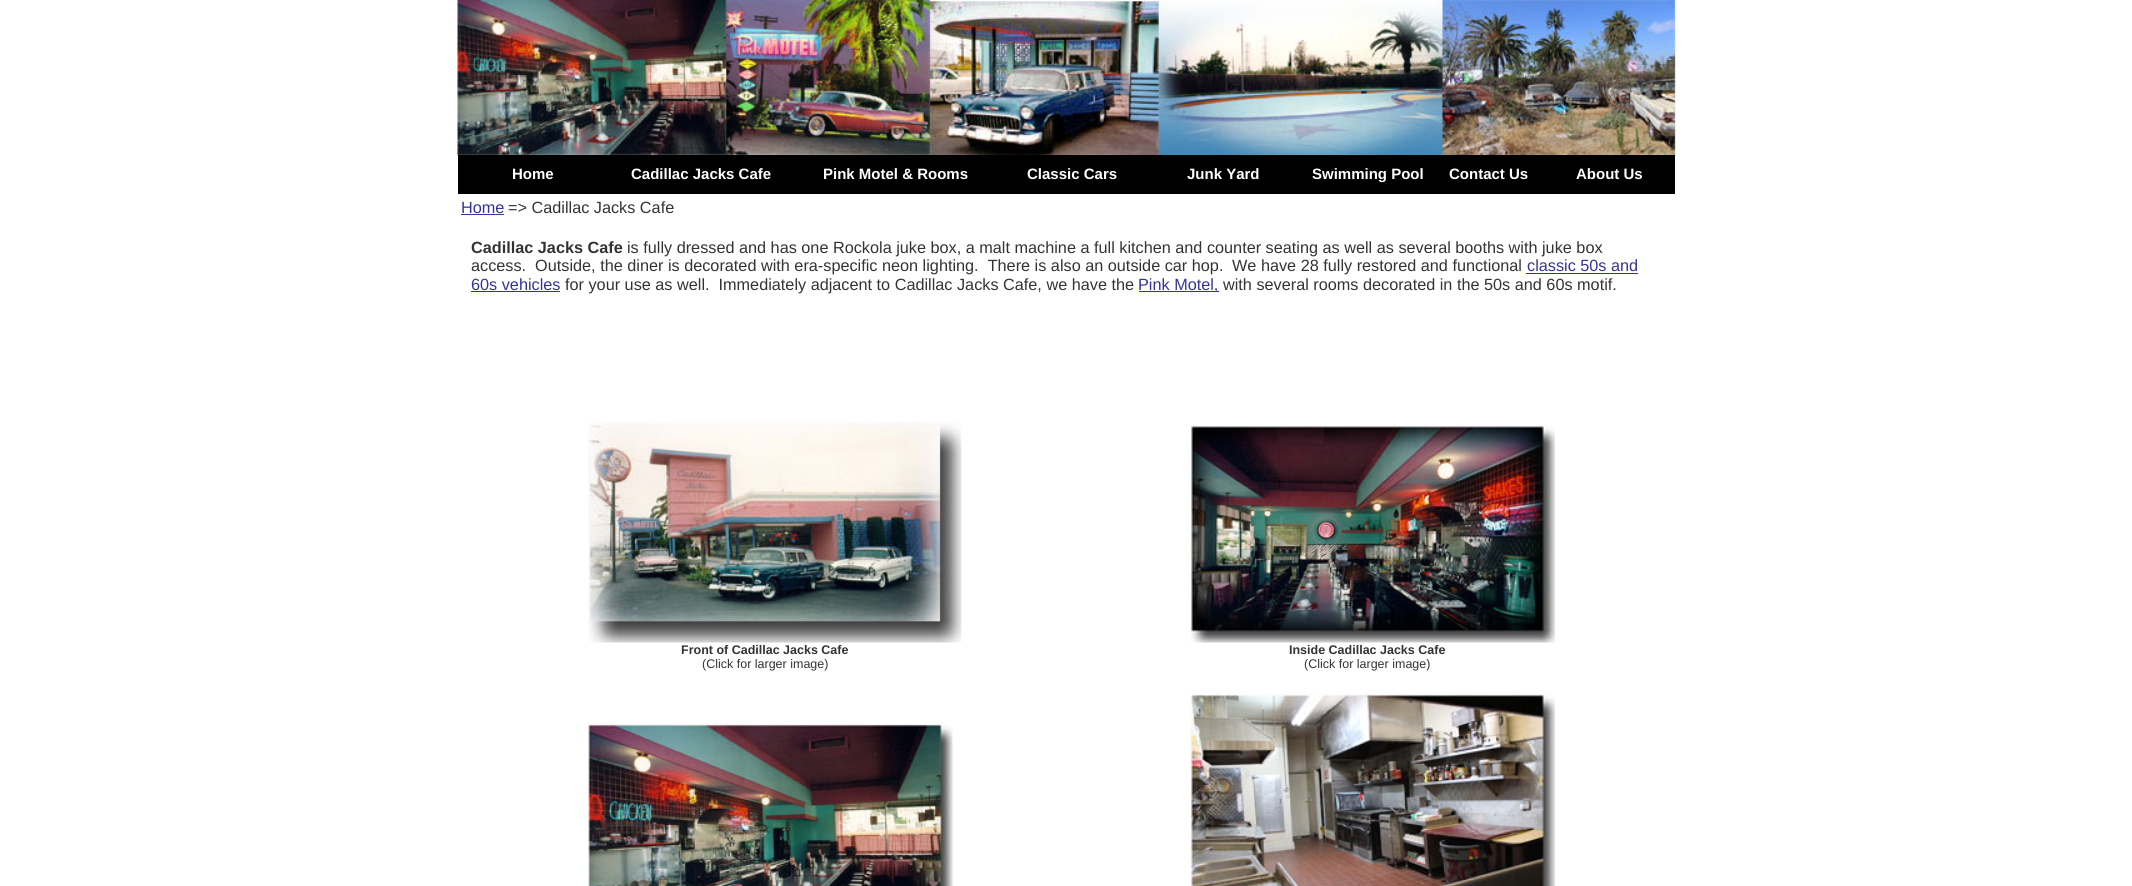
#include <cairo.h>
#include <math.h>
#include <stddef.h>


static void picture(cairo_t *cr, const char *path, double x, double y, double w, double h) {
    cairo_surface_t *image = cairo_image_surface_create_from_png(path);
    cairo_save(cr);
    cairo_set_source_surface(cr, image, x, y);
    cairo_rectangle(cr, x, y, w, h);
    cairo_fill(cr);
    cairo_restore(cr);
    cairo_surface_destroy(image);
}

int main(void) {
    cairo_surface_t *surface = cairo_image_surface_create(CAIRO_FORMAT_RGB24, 2132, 886);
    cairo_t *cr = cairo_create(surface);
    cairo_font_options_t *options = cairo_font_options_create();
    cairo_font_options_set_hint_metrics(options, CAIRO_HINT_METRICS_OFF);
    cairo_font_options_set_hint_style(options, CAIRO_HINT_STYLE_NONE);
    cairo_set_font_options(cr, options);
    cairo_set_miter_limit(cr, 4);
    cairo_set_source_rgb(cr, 1, 1, 1);
    cairo_paint(cr);
    picture(cr, "img1.png", 457, 0, 1220, 157);
    cairo_set_source_rgb(cr, 0, 0, 0);
    cairo_rectangle(cr, 458, 155, 1217, 39);
    cairo_fill(cr);
    cairo_select_font_face(cr, "Liberation Sans", CAIRO_FONT_SLANT_NORMAL, CAIRO_FONT_WEIGHT_BOLD);
    cairo_set_font_size(cr, 15);
    cairo_set_source_rgb(cr, 1, 1, 1);
    cairo_move_to(cr, 512, 179);
    cairo_show_text(cr, "Home");
    cairo_move_to(cr, 631, 179);
    cairo_show_text(cr, "Cadillac Jacks Cafe");
    cairo_move_to(cr, 823, 179);
    cairo_show_text(cr, "Pink Motel & Rooms");
    cairo_move_to(cr, 1027, 179);
    cairo_show_text(cr, "Classic Cars");
    cairo_move_to(cr, 1187, 179);
    cairo_show_text(cr, "Junk Yard");
    cairo_move_to(cr, 1312, 179);
    cairo_show_text(cr, "Swimming Pool");
    cairo_move_to(cr, 1449, 179);
    cairo_show_text(cr, "Contact Us");
    cairo_move_to(cr, 1576, 179);
    cairo_show_text(cr, "About Us");
    cairo_select_font_face(cr, "Liberation Sans", CAIRO_FONT_SLANT_NORMAL, CAIRO_FONT_WEIGHT_NORMAL);
    cairo_set_font_size(cr, 16.25);
    cairo_set_source_rgb(cr, 0.2, 0.2, 0.6);
    cairo_move_to(cr, 461, 213);
    cairo_show_text(cr, "Home");
    cairo_rectangle(cr, 461, 214, 43, 1);
    cairo_fill(cr);
    cairo_set_source_rgb(cr, 0.2, 0.2, 0.2);
    cairo_move_to(cr, 508, 213);
    cairo_show_text(cr, "=> Cadillac Jacks Cafe");
    cairo_select_font_face(cr, "Liberation Sans", CAIRO_FONT_SLANT_NORMAL, CAIRO_FONT_WEIGHT_BOLD);
    cairo_move_to(cr, 471, 253);
    cairo_show_text(cr, "Cadillac Jacks Cafe");
    cairo_select_font_face(cr, "Liberation Sans", CAIRO_FONT_SLANT_NORMAL, CAIRO_FONT_WEIGHT_NORMAL);
    cairo_move_to(cr, 627, 253);
    cairo_show_text(cr, "is fully dressed and has one Rockola juke box, a malt machine a full kitchen and counter seating as well as several booths with juke box");
    cairo_move_to(cr, 471, 271);
    cairo_show_text(cr, "access.  Outside, the diner is decorated with era-specific neon lighting.  There is also an outside car hop.");
    cairo_move_to(cr, 1232, 271);
    cairo_show_text(cr, "We have 28 fully restored and functional");
    cairo_set_source_rgb(cr, 0.2, 0.2, 0.6);
    cairo_move_to(cr, 1527, 271);
    cairo_show_text(cr, "classic 50s and");
    cairo_rectangle(cr, 1526, 273, 112, 1);
    cairo_fill(cr);
    cairo_move_to(cr, 471, 290);
    cairo_show_text(cr, "60s vehicles");
    cairo_rectangle(cr, 471, 291, 89, 1);
    cairo_fill(cr);
    cairo_set_source_rgb(cr, 0.2, 0.2, 0.2);
    cairo_move_to(cr, 565, 290);
    cairo_show_text(cr, "for your use as well.  Immediately adjacent to Cadillac Jacks Cafe, we have the");
    cairo_set_source_rgb(cr, 0.2, 0.2, 0.6);
    cairo_rectangle(cr, 1139, 291, 80, 1);
    cairo_fill(cr);
    cairo_move_to(cr, 1138, 290);
    cairo_show_text(cr, "Pink Motel,");
    cairo_set_source_rgb(cr, 0.2, 0.2, 0.2);
    cairo_move_to(cr, 1223, 290);
    cairo_show_text(cr, "with several rooms decorated in the 50s and 60s motif.");
    picture(cr, "img2.png", 588, 421, 374, 222);
    cairo_select_font_face(cr, "Liberation Sans", CAIRO_FONT_SLANT_NORMAL, CAIRO_FONT_WEIGHT_BOLD);
    cairo_set_font_size(cr, 12.5);
    cairo_move_to(cr, 681, 654);
    cairo_show_text(cr, "Front of Cadillac Jacks Cafe");
    cairo_select_font_face(cr, "Liberation Sans", CAIRO_FONT_SLANT_NORMAL, CAIRO_FONT_WEIGHT_NORMAL);
    cairo_move_to(cr, 702, 668);
    cairo_show_text(cr, "(Click for larger image)");
    picture(cr, "img3.png", 1190, 425, 365, 218);
    cairo_select_font_face(cr, "Liberation Sans", CAIRO_FONT_SLANT_NORMAL, CAIRO_FONT_WEIGHT_BOLD);
    cairo_move_to(cr, 1289, 654);
    cairo_show_text(cr, "Inside Cadillac Jacks Cafe");
    cairo_select_font_face(cr, "Liberation Sans", CAIRO_FONT_SLANT_NORMAL, CAIRO_FONT_WEIGHT_NORMAL);
    cairo_move_to(cr, 1304, 668);
    cairo_show_text(cr, "(Click for larger image)");
    picture(cr, "img4.png", 587, 723, 366, 163);
    picture(cr, "img5.png", 1190, 694, 365, 192);
    cairo_surface_write_to_png(surface, "page.png");
    cairo_font_options_destroy(options);
    cairo_destroy(cr);
    cairo_surface_destroy(surface);
    return 0;
}
